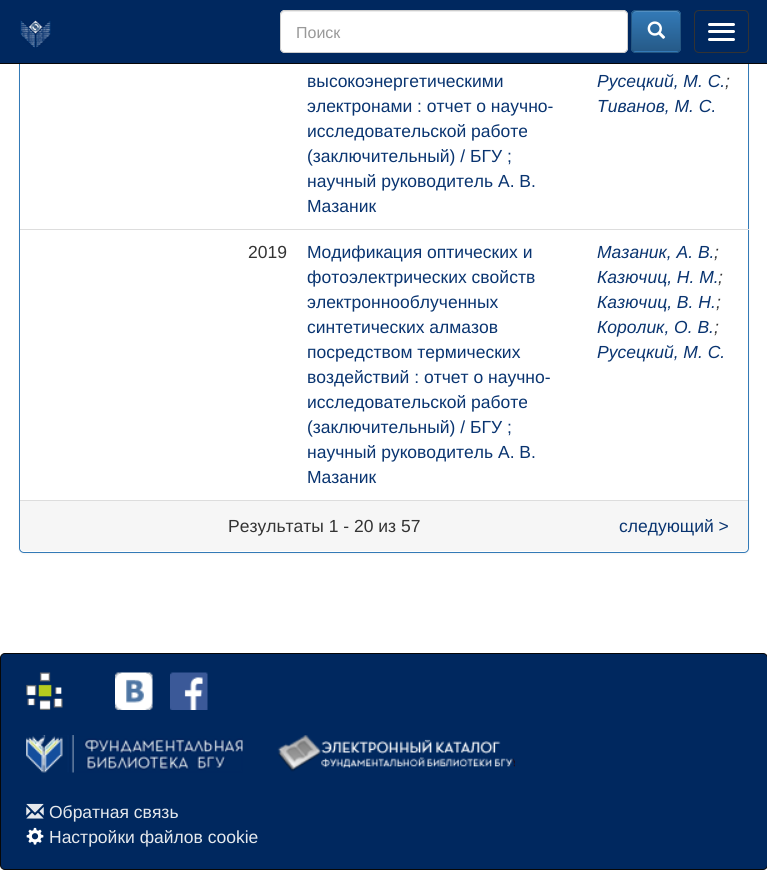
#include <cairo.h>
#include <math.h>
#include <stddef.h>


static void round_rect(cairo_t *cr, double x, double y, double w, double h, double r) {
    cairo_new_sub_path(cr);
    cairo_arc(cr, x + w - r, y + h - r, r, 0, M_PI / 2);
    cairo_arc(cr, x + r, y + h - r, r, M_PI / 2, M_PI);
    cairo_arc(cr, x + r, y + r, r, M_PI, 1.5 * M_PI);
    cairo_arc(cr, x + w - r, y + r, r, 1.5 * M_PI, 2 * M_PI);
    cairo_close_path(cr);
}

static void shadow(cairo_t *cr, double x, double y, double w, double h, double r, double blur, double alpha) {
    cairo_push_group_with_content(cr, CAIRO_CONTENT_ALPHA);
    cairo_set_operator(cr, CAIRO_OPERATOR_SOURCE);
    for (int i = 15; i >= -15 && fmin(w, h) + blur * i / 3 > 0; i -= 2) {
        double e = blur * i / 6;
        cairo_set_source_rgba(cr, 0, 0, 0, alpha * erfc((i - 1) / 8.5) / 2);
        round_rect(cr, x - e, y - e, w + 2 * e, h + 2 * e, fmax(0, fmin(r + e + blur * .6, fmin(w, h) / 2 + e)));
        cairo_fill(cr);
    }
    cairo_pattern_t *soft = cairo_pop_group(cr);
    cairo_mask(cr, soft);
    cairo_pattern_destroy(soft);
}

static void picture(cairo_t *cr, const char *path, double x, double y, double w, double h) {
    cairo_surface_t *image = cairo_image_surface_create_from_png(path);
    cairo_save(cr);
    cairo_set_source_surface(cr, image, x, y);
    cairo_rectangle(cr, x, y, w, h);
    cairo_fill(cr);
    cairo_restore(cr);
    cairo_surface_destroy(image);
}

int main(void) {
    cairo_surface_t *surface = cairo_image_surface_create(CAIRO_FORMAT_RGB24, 767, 870);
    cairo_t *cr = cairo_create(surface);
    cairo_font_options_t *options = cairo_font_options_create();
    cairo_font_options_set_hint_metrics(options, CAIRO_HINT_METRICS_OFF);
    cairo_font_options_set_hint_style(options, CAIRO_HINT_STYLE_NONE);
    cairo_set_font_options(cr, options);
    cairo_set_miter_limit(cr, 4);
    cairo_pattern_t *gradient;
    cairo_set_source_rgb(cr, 1, 1, 1);
    cairo_paint(cr);
    cairo_set_source_rgb(cr, 0, 0, 0);
    shadow(cr, 19, -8, 730, 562, 5, 1, 0.05);
    cairo_set_source_rgb(cr, 1, 1, 1);
    round_rect(cr, 19.5, -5.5, 729, 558, 4.5);
    cairo_fill_preserve(cr);
    cairo_set_source_rgb(cr, 0.2, 0.478, 0.718);
    cairo_set_line_width(cr, 1);
    cairo_stroke(cr);
    cairo_set_source_rgb(cr, 0, 0.157, 0.373);
    cairo_rectangle(cr, 0, 0, 767, 63);
    cairo_fill(cr);
    cairo_set_source_rgb(cr, 0.031, 0.031, 0.031);
    cairo_rectangle(cr, 0, 63, 767, 1);
    cairo_fill(cr);
    picture(cr, "img1.png", 20, 20, 31, 28);
    cairo_set_source_rgb(cr, 1, 1, 1);
    round_rect(cr, 280, 10, 348, 43, 5);
    cairo_fill(cr);
    cairo_set_source_rgb(cr, 0.925, 0.925, 0.925);
    cairo_new_path(cr);
    cairo_move_to(cr, 285, 12);
    cairo_line_to(cr, 624, 12);
    cairo_line_to(cr, 626, 14);
    cairo_line_to(cr, 626, 16);
    cairo_line_to(cr, 626, 15);
    cairo_curve_to(cr, 626, 13, 624, 11, 622, 11);
    cairo_line_to(cr, 285, 11);
    cairo_curve_to(cr, 283, 11, 281, 13, 281, 15);
    cairo_line_to(cr, 281, 16);
    cairo_curve_to(cr, 281, 14, 283, 12, 285, 12);
    cairo_close_path(cr);
    cairo_fill(cr);
    round_rect(cr, 280.5, 10.5, 347, 42, 4.5);
    cairo_set_source_rgb(cr, 0.8, 0.8, 0.8);
    cairo_stroke(cr);
    cairo_select_font_face(cr, "Liberation Sans", CAIRO_FONT_SLANT_NORMAL, CAIRO_FONT_WEIGHT_NORMAL);
    cairo_set_font_size(cr, 16);
    cairo_set_source_rgb(cr, 0.6, 0.6, 0.6);
    cairo_move_to(cr, 296, 38);
    cairo_show_text(cr, "Поиск");
    cairo_set_source_rgb(cr, 0.2, 0.478, 0.718);
    round_rect(cr, 631, 10, 50, 43, 5);
    cairo_fill(cr);
    cairo_save(cr);
    round_rect(cr, 631, 10, 50, 43, 5);
    cairo_clip(cr);
    gradient = cairo_pattern_create_linear(656, 11, 656, 51);
    cairo_pattern_add_color_stop_rgba(gradient, 0, 0.2, 0.478, 0.718, 1);
    cairo_pattern_add_color_stop_rgba(gradient, 1, 0.149, 0.353, 0.533, 1);
    cairo_set_source(cr, gradient);
    cairo_pattern_destroy(gradient);
    cairo_rectangle(cr, 631, 11, 50, 40);
    cairo_fill(cr);
    cairo_restore(cr);
    cairo_set_source_rgb(cr, 0.322, 0.557, 0.757);
    cairo_new_path(cr);
    cairo_move_to(cr, 636, 12);
    cairo_line_to(cr, 676, 12);
    cairo_curve_to(cr, 678, 12, 680, 14, 680, 16);
    cairo_line_to(cr, 680, 15);
    cairo_curve_to(cr, 680, 13, 678, 11, 676, 11);
    cairo_line_to(cr, 637, 11);
    cairo_curve_to(cr, 636, 11, 634, 12, 634, 13);
    cairo_close_path(cr);
    cairo_fill(cr);
    round_rect(cr, 631.5, 10.5, 49, 42, 4.5);
    cairo_set_source_rgb(cr, 0.141, 0.333, 0.502);
    cairo_stroke(cr);
    picture(cr, "img2.png", 647, 21, 19, 18);
    round_rect(cr, 694.5, 10.5, 54, 42, 4.5);
    cairo_set_source_rgb(cr, 0.2, 0.2, 0.2);
    cairo_stroke(cr);
    cairo_set_source_rgb(cr, 1, 1, 1);
    round_rect(cr, 708, 23, 27, 3, 1.5);
    cairo_fill(cr);
    round_rect(cr, 708, 30, 27, 3, 1.5);
    cairo_fill(cr);
    round_rect(cr, 708, 38, 27, 3, 1.5);
    cairo_fill(cr);
    cairo_set_font_size(cr, 17.5);
    cairo_set_source_rgb(cr, 0.039, 0.204, 0.439);
    cairo_move_to(cr, 307, 87);
    cairo_show_text(cr, "высокоэнергетическими");
    cairo_move_to(cr, 307, 112);
    cairo_show_text(cr, "электронами : отчет о научно-");
    cairo_move_to(cr, 307, 137);
    cairo_show_text(cr, "исследовательской работе");
    cairo_move_to(cr, 307, 162);
    cairo_show_text(cr, "(заключительный) / БГУ ;");
    cairo_move_to(cr, 307, 187);
    cairo_show_text(cr, "научный руководитель А. В.");
    cairo_move_to(cr, 307, 212);
    cairo_show_text(cr, "Мазаник");
    cairo_select_font_face(cr, "Liberation Sans", CAIRO_FONT_SLANT_ITALIC, CAIRO_FONT_WEIGHT_NORMAL);
    cairo_move_to(cr, 597, 87);
    cairo_show_text(cr, "Русецкий, М. С.");
    cairo_set_source_rgb(cr, 0.2, 0.2, 0.2);
    cairo_move_to(cr, 725, 87);
    cairo_show_text(cr, ";");
    cairo_set_source_rgb(cr, 0.039, 0.204, 0.439);
    cairo_move_to(cr, 597, 112);
    cairo_show_text(cr, "Тиванов, М. С.");
    cairo_select_font_face(cr, "Liberation Sans", CAIRO_FONT_SLANT_NORMAL, CAIRO_FONT_WEIGHT_NORMAL);
    cairo_set_source_rgb(cr, 0.2, 0.2, 0.2);
    cairo_move_to(cr, 248, 258);
    cairo_show_text(cr, "2019");
    cairo_set_source_rgb(cr, 0.039, 0.204, 0.439);
    cairo_move_to(cr, 307, 258);
    cairo_show_text(cr, "Модификация оптических и");
    cairo_move_to(cr, 307, 283);
    cairo_show_text(cr, "фотоэлектрических свойств");
    cairo_move_to(cr, 307, 308);
    cairo_show_text(cr, "электроннооблученных");
    cairo_move_to(cr, 307, 333);
    cairo_show_text(cr, "синтетических алмазов");
    cairo_move_to(cr, 307, 358);
    cairo_show_text(cr, "посредством термических");
    cairo_move_to(cr, 307, 383);
    cairo_show_text(cr, "воздействий : отчет о научно-");
    cairo_move_to(cr, 307, 408);
    cairo_show_text(cr, "исследовательской работе");
    cairo_move_to(cr, 307, 433);
    cairo_show_text(cr, "(заключительный) / БГУ ;");
    cairo_move_to(cr, 307, 458);
    cairo_show_text(cr, "научный руководитель А. В.");
    cairo_move_to(cr, 307, 483);
    cairo_show_text(cr, "Мазаник");
    cairo_set_source_rgb(cr, 0.867, 0.867, 0.867);
    cairo_rectangle(cr, 20, 229, 729, 1);
    cairo_fill(cr);
    cairo_select_font_face(cr, "Liberation Sans", CAIRO_FONT_SLANT_ITALIC, CAIRO_FONT_WEIGHT_NORMAL);
    cairo_set_source_rgb(cr, 0.039, 0.204, 0.439);
    cairo_move_to(cr, 597, 258);
    cairo_show_text(cr, "Мазаник, А. В.");
    cairo_set_source_rgb(cr, 0.2, 0.2, 0.2);
    cairo_move_to(cr, 714, 258);
    cairo_show_text(cr, ";");
    cairo_set_source_rgb(cr, 0.039, 0.204, 0.439);
    cairo_move_to(cr, 597, 283);
    cairo_show_text(cr, "Казючиц, Н. М.");
    cairo_set_source_rgb(cr, 0.2, 0.2, 0.2);
    cairo_move_to(cr, 718, 283);
    cairo_show_text(cr, ";");
    cairo_set_source_rgb(cr, 0.039, 0.204, 0.439);
    cairo_move_to(cr, 597, 308);
    cairo_show_text(cr, "Казючиц, В. Н.");
    cairo_set_source_rgb(cr, 0.2, 0.2, 0.2);
    cairo_move_to(cr, 716, 308);
    cairo_show_text(cr, ";");
    cairo_set_source_rgb(cr, 0.039, 0.204, 0.439);
    cairo_move_to(cr, 597, 333);
    cairo_show_text(cr, "Королик, О. В.");
    cairo_set_source_rgb(cr, 0.2, 0.2, 0.2);
    cairo_move_to(cr, 714, 333);
    cairo_show_text(cr, ";");
    cairo_set_source_rgb(cr, 0.039, 0.204, 0.439);
    cairo_move_to(cr, 597, 358);
    cairo_show_text(cr, "Русецкий, М. С.");
    cairo_set_source_rgb(cr, 0.961, 0.961, 0.961);
    cairo_new_path(cr);
    cairo_move_to(cr, 20, 500);
    cairo_line_to(cr, 748, 500);
    cairo_line_to(cr, 748, 547);
    cairo_curve_to(cr, 748, 549, 746, 551, 744, 551);
    cairo_line_to(cr, 24, 551);
    cairo_curve_to(cr, 22, 551, 20, 549, 20, 547);
    cairo_close_path(cr);
    cairo_fill(cr);
    cairo_set_source_rgb(cr, 0.867, 0.867, 0.867);
    cairo_rectangle(cr, 20, 500, 728, 1);
    cairo_fill(cr);
    cairo_select_font_face(cr, "Liberation Sans", CAIRO_FONT_SLANT_NORMAL, CAIRO_FONT_WEIGHT_NORMAL);
    cairo_set_source_rgb(cr, 0.2, 0.2, 0.2);
    cairo_move_to(cr, 228, 532);
    cairo_show_text(cr, "Результаты 1 - 20 из 57");
    cairo_set_source_rgb(cr, 0.039, 0.204, 0.439);
    cairo_move_to(cr, 619, 532);
    cairo_show_text(cr, "следующий >");
    cairo_set_source_rgb(cr, 0, 0.157, 0.373);
    round_rect(cr, 0.5, 653.5, 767, 216, 4.5);
    cairo_fill_preserve(cr);
    cairo_set_source_rgb(cr, 0.031, 0.031, 0.031);
    cairo_stroke(cr);
    picture(cr, "img3.png", 26, 672, 37, 38);
    picture(cr, "img4.png", 115, 672, 38, 38);
    picture(cr, "img5.png", 170, 672, 38, 38);
    picture(cr, "img6.png", 26, 735, 217, 38);
    picture(cr, "img7.png", 277, 735, 238, 37);
    picture(cr, "img8.png", 26, 803, 18, 16);
    cairo_set_source_rgb(cr, 0.902, 0.914, 0.929);
    cairo_move_to(cr, 49, 818);
    cairo_show_text(cr, "Обратная связь");
    picture(cr, "img9.png", 26, 827, 18, 18);
    cairo_move_to(cr, 49, 843);
    cairo_show_text(cr, "Настройки файлов cookie");
    cairo_surface_write_to_png(surface, "page.png");
    cairo_font_options_destroy(options);
    cairo_destroy(cr);
    cairo_surface_destroy(surface);
    return 0;
}
